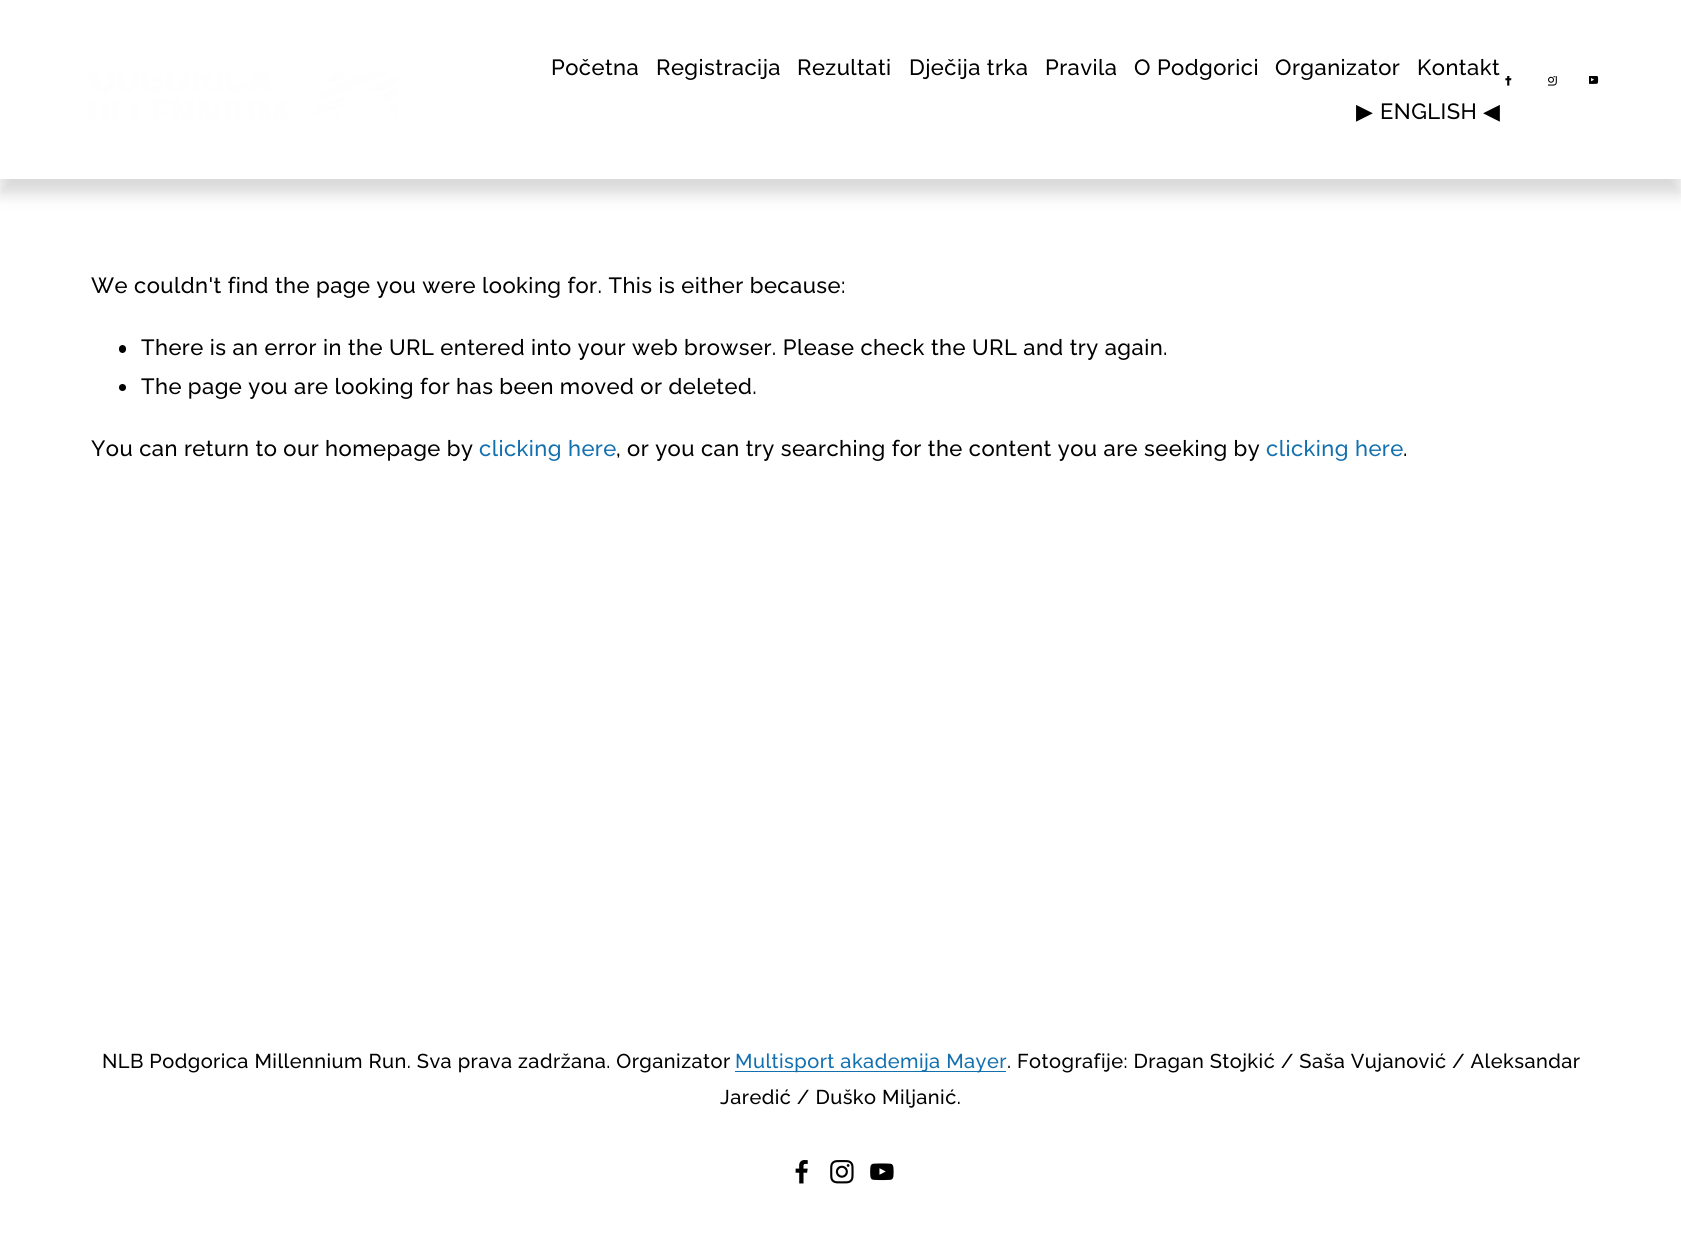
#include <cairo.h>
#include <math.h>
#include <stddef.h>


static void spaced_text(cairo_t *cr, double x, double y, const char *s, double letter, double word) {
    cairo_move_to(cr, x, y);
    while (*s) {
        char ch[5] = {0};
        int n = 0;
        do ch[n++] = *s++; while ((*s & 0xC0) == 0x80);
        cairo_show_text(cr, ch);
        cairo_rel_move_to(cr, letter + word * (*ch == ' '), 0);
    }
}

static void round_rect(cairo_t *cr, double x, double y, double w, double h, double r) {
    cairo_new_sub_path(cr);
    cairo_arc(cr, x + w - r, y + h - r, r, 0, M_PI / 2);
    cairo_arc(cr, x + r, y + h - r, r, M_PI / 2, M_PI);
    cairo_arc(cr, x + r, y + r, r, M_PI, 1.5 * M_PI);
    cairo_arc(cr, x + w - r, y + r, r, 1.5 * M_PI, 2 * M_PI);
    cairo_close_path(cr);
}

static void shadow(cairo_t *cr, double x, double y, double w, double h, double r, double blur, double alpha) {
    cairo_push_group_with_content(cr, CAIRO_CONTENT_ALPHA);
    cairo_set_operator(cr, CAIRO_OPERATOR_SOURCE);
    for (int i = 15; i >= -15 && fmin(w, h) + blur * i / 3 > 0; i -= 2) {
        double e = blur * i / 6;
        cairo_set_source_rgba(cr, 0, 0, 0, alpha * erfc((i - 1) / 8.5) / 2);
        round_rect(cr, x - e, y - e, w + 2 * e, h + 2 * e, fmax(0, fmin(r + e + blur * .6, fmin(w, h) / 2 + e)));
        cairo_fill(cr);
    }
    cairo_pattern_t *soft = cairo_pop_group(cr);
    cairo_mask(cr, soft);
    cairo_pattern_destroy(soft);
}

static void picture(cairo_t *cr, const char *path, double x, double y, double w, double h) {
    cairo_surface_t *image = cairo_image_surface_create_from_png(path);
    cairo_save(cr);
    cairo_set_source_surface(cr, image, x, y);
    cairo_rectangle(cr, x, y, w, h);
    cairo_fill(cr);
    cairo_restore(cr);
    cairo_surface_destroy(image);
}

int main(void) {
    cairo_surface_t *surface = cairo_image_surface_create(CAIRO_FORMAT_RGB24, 1681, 1259);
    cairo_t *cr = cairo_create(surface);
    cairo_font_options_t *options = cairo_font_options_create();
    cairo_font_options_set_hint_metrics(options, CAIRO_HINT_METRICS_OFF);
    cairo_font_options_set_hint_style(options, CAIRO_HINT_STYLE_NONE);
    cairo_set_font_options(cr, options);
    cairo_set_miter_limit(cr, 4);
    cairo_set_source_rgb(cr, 1, 1, 1);
    cairo_paint(cr);
    cairo_save(cr);
    cairo_set_fill_rule(cr, CAIRO_FILL_RULE_EVEN_ODD);
    cairo_new_path(cr);
    cairo_move_to(cr, 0, 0);
    cairo_line_to(cr, 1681, 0);
    cairo_line_to(cr, 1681, 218);
    cairo_line_to(cr, 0, 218);
    cairo_close_path(cr);
    cairo_move_to(cr, 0, 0);
    cairo_line_to(cr, 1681, 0);
    cairo_line_to(cr, 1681, 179);
    cairo_line_to(cr, 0, 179);
    cairo_close_path(cr);
    cairo_clip(cr);
    cairo_set_source_rgb(cr, 0.851, 0.851, 0.851);
    shadow(cr, 0, 15, 1681, 179, 0, 7.5, 1);
    cairo_restore(cr);
    picture(cr, "img1.png", 89, 73, 308, 46);
    cairo_select_font_face(cr, "Raleway Medium", CAIRO_FONT_SLANT_NORMAL, CAIRO_FONT_WEIGHT_NORMAL);
    cairo_set_font_size(cr, 22);
    cairo_set_source_rgb(cr, 0, 0, 0);
    spaced_text(cr, 551, 75, "Početna", 0.45, 0);
    spaced_text(cr, 656, 75, "Registracija", 0.45, 0);
    spaced_text(cr, 797, 75, "Rezultati", 0.45, 0);
    spaced_text(cr, 909, 75, "Dječija trka", 0.45, 0);
    spaced_text(cr, 1045, 75, "Pravila", 0.45, 0);
    spaced_text(cr, 1134, 75, "O Podgorici", 0.45, 0);
    spaced_text(cr, 1275, 75, "Organizator", 0.45, 0);
    spaced_text(cr, 1417, 75, "Kontakt", 0.45, 0);
    cairo_select_font_face(cr, "DejaVu Sans", CAIRO_FONT_SLANT_NORMAL, CAIRO_FONT_WEIGHT_NORMAL);
    spaced_text(cr, 1356, 119, "▶", 0.45, 0);
    cairo_select_font_face(cr, "Raleway Medium", CAIRO_FONT_SLANT_NORMAL, CAIRO_FONT_WEIGHT_NORMAL);
    spaced_text(cr, 1380, 119, "ENGLISH", 0.45, 0);
    cairo_select_font_face(cr, "DejaVu Sans", CAIRO_FONT_SLANT_NORMAL, CAIRO_FONT_WEIGHT_NORMAL);
    spaced_text(cr, 1483, 119, "◀", 0.45, 0);
    picture(cr, "img2.png", 1505, 76, 7, 10);
    picture(cr, "img3.png", 1548, 76, 9, 10);
    picture(cr, "img4.png", 1589, 76, 10, 8);
    cairo_select_font_face(cr, "Raleway Medium", CAIRO_FONT_SLANT_NORMAL, CAIRO_FONT_WEIGHT_NORMAL);
    spaced_text(cr, 91, 293, "We couldn't find the page you were looking for. This is either because:", 0.45, 0);
    round_rect(cr, 119, 345, 7, 8, 3.5);
    cairo_fill(cr);
    spaced_text(cr, 141, 355, "There is an error in the URL entered into your web browser. Please check the URL and try again.", 0.45, 0);
    cairo_new_path(cr);
    cairo_arc(cr, 122.5, 387.5, 3.5, 0, 2 * M_PI);
    cairo_fill(cr);
    spaced_text(cr, 141, 394, "The page you are looking for has been moved or deleted.", 0.45, 0);
    spaced_text(cr, 91, 456, "You can return to our homepage by", 0.45, 0);
    cairo_set_source_rgb(cr, 0.078, 0.439, 0.686);
    spaced_text(cr, 479, 456, "clicking here", 0.45, 0);
    cairo_set_source_rgb(cr, 0, 0, 0);
    spaced_text(cr, 616, 456, ", or you can try searching for the content you are seeking by", 0.45, 0);
    cairo_set_source_rgb(cr, 0.078, 0.439, 0.686);
    spaced_text(cr, 1266, 456, "clicking here", 0.45, 0);
    cairo_set_source_rgb(cr, 0, 0, 0);
    spaced_text(cr, 1403, 456, ".", 0.45, 0);
    cairo_set_font_size(cr, 20);
    spaced_text(cr, 102, 1068, "NLB Podgorica Millennium Run. Sva prava zadržana. Organizator", 0.45, 0);
    cairo_set_source_rgb(cr, 0.078, 0.439, 0.686);
    cairo_rectangle(cr, 735, 1071, 271, 1);
    cairo_fill(cr);
    spaced_text(cr, 735, 1068, "Multisport akademija Mayer", 0.45, 0);
    cairo_set_source_rgb(cr, 0, 0, 0);
    spaced_text(cr, 1007, 1068, ". Fotografije: Dragan Stojkić / Saša Vujanović / Aleksandar", 0.45, 0);
    spaced_text(cr, 720, 1104, "Jaredić / Duško Miljanić.", 0.45, 0);
    picture(cr, "img5.png", 795, 1160, 13, 24);
    picture(cr, "img6.png", 830, 1160, 24, 24);
    picture(cr, "img7.png", 870, 1163, 24, 18);
    cairo_surface_write_to_png(surface, "page.png");
    cairo_font_options_destroy(options);
    cairo_destroy(cr);
    cairo_surface_destroy(surface);
    return 0;
}
